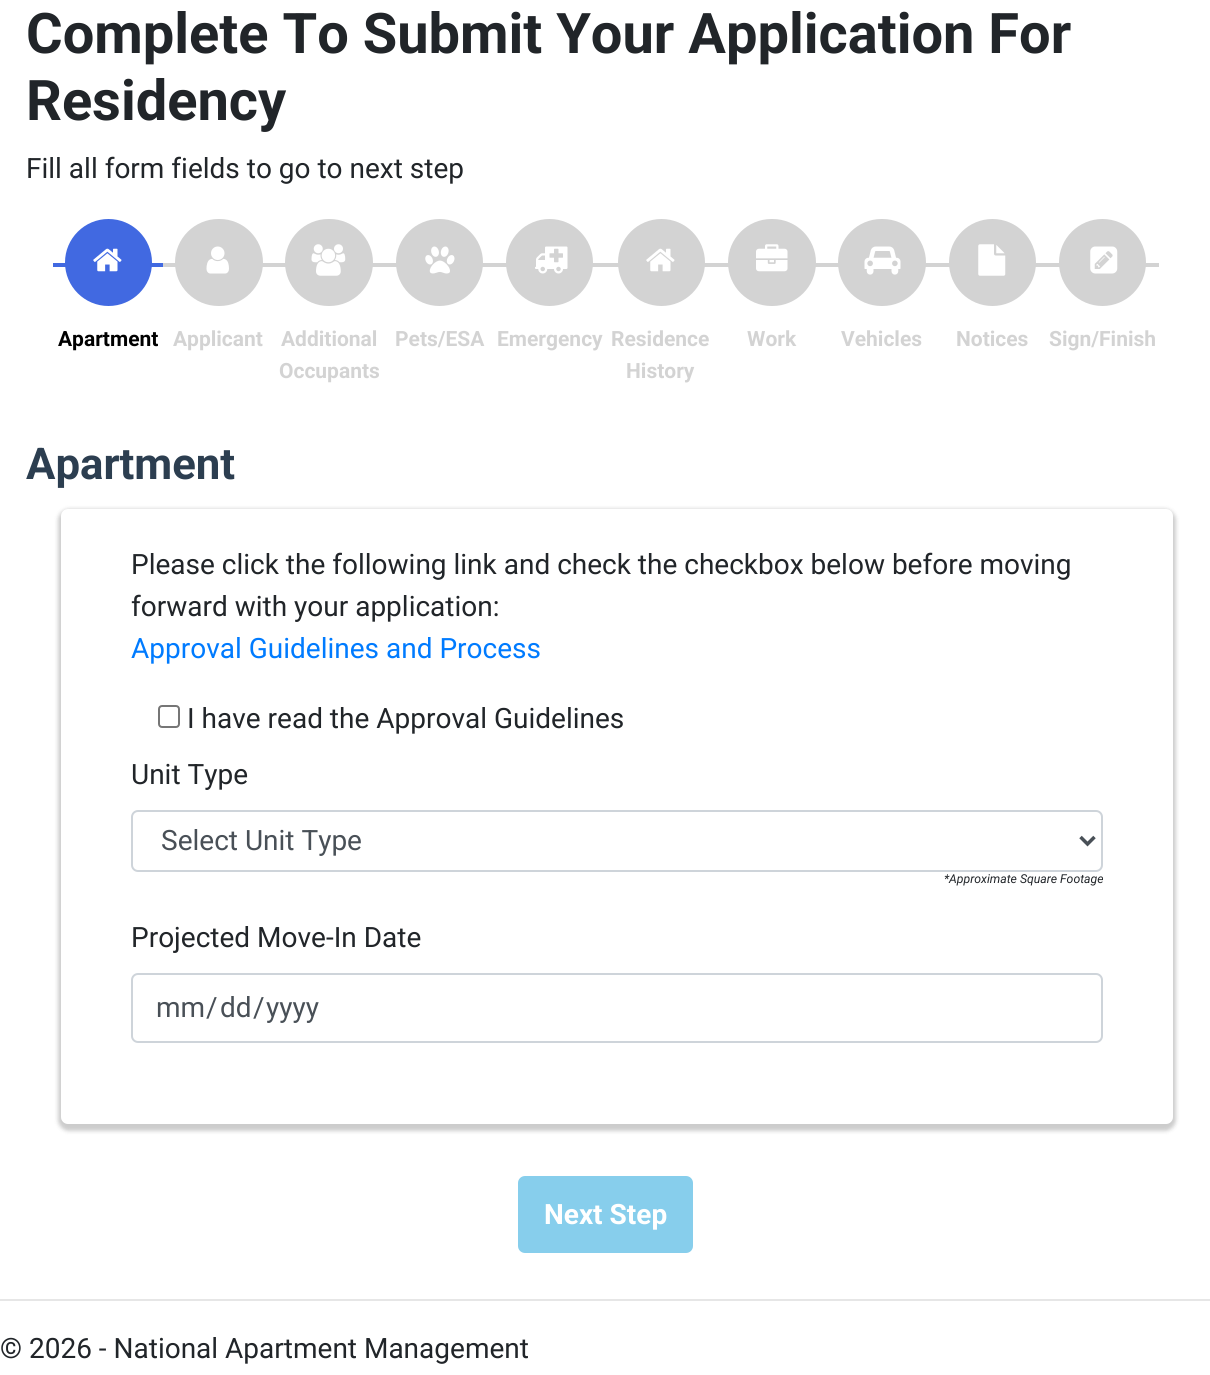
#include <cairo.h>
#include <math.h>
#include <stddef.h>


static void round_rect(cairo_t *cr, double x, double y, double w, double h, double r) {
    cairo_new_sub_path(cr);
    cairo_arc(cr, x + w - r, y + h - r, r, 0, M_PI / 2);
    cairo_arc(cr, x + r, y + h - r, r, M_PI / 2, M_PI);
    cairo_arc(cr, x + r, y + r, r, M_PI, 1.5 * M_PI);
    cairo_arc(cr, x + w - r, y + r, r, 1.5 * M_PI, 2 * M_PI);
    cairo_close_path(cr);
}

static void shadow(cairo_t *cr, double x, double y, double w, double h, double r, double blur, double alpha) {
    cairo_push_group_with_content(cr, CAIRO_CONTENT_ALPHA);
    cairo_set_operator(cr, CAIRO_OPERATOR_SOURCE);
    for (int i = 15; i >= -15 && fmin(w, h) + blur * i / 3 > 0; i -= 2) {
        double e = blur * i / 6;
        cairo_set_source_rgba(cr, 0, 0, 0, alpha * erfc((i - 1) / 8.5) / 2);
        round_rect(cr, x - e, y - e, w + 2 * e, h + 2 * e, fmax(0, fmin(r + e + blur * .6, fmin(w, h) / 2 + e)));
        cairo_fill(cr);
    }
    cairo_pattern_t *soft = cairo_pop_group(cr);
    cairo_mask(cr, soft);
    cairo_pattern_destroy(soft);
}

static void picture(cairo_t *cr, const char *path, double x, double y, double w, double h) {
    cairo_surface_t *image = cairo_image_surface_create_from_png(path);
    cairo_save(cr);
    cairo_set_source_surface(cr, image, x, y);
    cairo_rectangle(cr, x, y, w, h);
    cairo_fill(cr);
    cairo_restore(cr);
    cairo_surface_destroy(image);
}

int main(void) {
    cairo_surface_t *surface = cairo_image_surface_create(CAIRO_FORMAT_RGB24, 1210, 1375);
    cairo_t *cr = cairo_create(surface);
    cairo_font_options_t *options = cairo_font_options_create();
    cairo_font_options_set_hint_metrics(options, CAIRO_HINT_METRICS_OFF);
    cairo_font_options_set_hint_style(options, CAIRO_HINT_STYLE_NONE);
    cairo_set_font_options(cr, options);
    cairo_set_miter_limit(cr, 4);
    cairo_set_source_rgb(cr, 1, 1, 1);
    cairo_paint(cr);
    cairo_select_font_face(cr, "Roboto", CAIRO_FONT_SLANT_NORMAL, CAIRO_FONT_WEIGHT_BOLD);
    cairo_set_font_size(cr, 56);
    cairo_set_source_rgb(cr, 0.129, 0.145, 0.161);
    cairo_move_to(cr, 26, 53);
    cairo_show_text(cr, "Complete To Submit Your Application For");
    cairo_move_to(cr, 26, 120);
    cairo_show_text(cr, "Residency");
    cairo_select_font_face(cr, "Roboto", CAIRO_FONT_SLANT_NORMAL, CAIRO_FONT_WEIGHT_NORMAL);
    cairo_set_font_size(cr, 28);
    cairo_move_to(cr, 26, 178);
    cairo_show_text(cr, "Fill all form fields to go to next step");
    cairo_set_source_rgb(cr, 0.255, 0.412, 0.882);
    cairo_rectangle(cr, 53, 263, 110, 4);
    cairo_fill(cr);
    cairo_arc(cr, 108.5, 262.5, 43.5, 0, 2 * M_PI);
    cairo_fill(cr);
    picture(cr, "img1.png", 93, 248, 29, 24);
    cairo_select_font_face(cr, "Roboto", CAIRO_FONT_SLANT_NORMAL, CAIRO_FONT_WEIGHT_BOLD);
    cairo_set_font_size(cr, 21);
    cairo_set_source_rgb(cr, 0, 0, 0);
    cairo_move_to(cr, 58, 346);
    cairo_show_text(cr, "Apartment");
    cairo_set_source_rgb(cr, 0.827, 0.827, 0.827);
    cairo_rectangle(cr, 163, 263, 996, 4);
    cairo_fill(cr);
    round_rect(cr, 175, 219, 88, 87, 43.5);
    cairo_fill(cr);
    picture(cr, "img2.png", 206, 246, 23, 28);
    cairo_move_to(cr, 173, 346);
    cairo_show_text(cr, "Applicant");
    round_rect(cr, 285, 219, 88, 87, 43.5);
    cairo_fill(cr);
    picture(cr, "img3.png", 311, 244, 35, 32);
    cairo_move_to(cr, 281, 346);
    cairo_show_text(cr, "Additional");
    cairo_move_to(cr, 279, 378);
    cairo_show_text(cr, "Occupants");
    cairo_new_path(cr);
    cairo_arc(cr, 439.5, 262.5, 43.5, 0, 2 * M_PI);
    cairo_fill(cr);
    picture(cr, "img4.png", 425, 246, 30, 28);
    cairo_move_to(cr, 395, 346);
    cairo_show_text(cr, "Pets/ESA");
    cairo_new_path(cr);
    cairo_arc(cr, 549.5, 262.5, 43.5, 0, 2 * M_PI);
    cairo_fill(cr);
    picture(cr, "img5.png", 535, 246, 33, 28);
    cairo_move_to(cr, 497, 346);
    cairo_show_text(cr, "Emergency");
    cairo_new_path(cr);
    cairo_arc(cr, 661.5, 262.5, 43.5, 0, 2 * M_PI);
    cairo_fill(cr);
    picture(cr, "img6.png", 646, 248, 29, 24);
    cairo_move_to(cr, 611, 346);
    cairo_show_text(cr, "Residence");
    cairo_move_to(cr, 626, 378);
    cairo_show_text(cr, "History");
    round_rect(cr, 728, 219, 88, 87, 43.5);
    cairo_fill(cr);
    picture(cr, "img7.png", 756, 244, 32, 28);
    cairo_move_to(cr, 747, 346);
    cairo_show_text(cr, "Work");
    round_rect(cr, 838, 219, 88, 87, 43.5);
    cairo_fill(cr);
    picture(cr, "img8.png", 864, 246, 37, 29);
    cairo_move_to(cr, 841, 346);
    cairo_show_text(cr, "Vehicles");
    cairo_new_path(cr);
    cairo_arc(cr, 992.5, 262.5, 43.5, 0, 2 * M_PI);
    cairo_fill(cr);
    picture(cr, "img9.png", 978, 244, 28, 32);
    cairo_move_to(cr, 956, 346);
    cairo_show_text(cr, "Notices");
    cairo_new_path(cr);
    cairo_arc(cr, 1102.5, 262.5, 43.5, 0, 2 * M_PI);
    cairo_fill(cr);
    picture(cr, "img10.png", 1090, 246, 28, 28);
    cairo_move_to(cr, 1049, 346);
    cairo_show_text(cr, "Sign/Finish");
    cairo_set_font_size(cr, 43.75);
    cairo_set_source_rgb(cr, 0.173, 0.243, 0.314);
    cairo_move_to(cr, 26, 479);
    cairo_show_text(cr, "Apartment");
    cairo_set_source_rgb(cr, 0, 0, 0);
    shadow(cr, 58, 509, 1118, 622, 11, 2, 0.2);
    cairo_set_source_rgb(cr, 1, 1, 1);
    round_rect(cr, 61, 509, 1112, 615, 7);
    cairo_fill(cr);
    cairo_select_font_face(cr, "Roboto", CAIRO_FONT_SLANT_NORMAL, CAIRO_FONT_WEIGHT_NORMAL);
    cairo_set_font_size(cr, 28);
    cairo_set_source_rgb(cr, 0.129, 0.145, 0.161);
    cairo_move_to(cr, 131, 574);
    cairo_show_text(cr, "Please click the following link and check the checkbox below before moving");
    cairo_move_to(cr, 131, 616);
    cairo_show_text(cr, "forward with your application:");
    cairo_set_source_rgb(cr, 0, 0.482, 1);
    cairo_move_to(cr, 131, 658);
    cairo_show_text(cr, "Approval Guidelines and Process");
    round_rect(cr, 159, 706, 20, 21, 3);
    cairo_set_source_rgb(cr, 0.463, 0.463, 0.463);
    cairo_stroke(cr);
    cairo_set_source_rgb(cr, 0.129, 0.145, 0.161);
    cairo_move_to(cr, 187, 728);
    cairo_show_text(cr, "I have read the Approval Guidelines");
    cairo_move_to(cr, 131, 784);
    cairo_show_text(cr, "Unit Type");
    round_rect(cr, 132, 811, 970, 60, 6);
    cairo_set_source_rgb(cr, 0.808, 0.831, 0.855);
    cairo_stroke(cr);
    cairo_new_path(cr);
    cairo_move_to(cr, 1080.5, 837);
    cairo_line_to(cr, 1087.5, 844);
    cairo_line_to(cr, 1094.5, 837);
    cairo_set_source_rgb(cr, 0.286, 0.314, 0.341);
    cairo_set_line_width(cr, 3.5);
    cairo_stroke(cr);
    cairo_move_to(cr, 161, 850);
    cairo_show_text(cr, "Select Unit Type");
    cairo_select_font_face(cr, "Roboto", CAIRO_FONT_SLANT_ITALIC, CAIRO_FONT_WEIGHT_NORMAL);
    cairo_set_font_size(cr, 12.25);
    cairo_set_source_rgb(cr, 0.129, 0.145, 0.161);
    cairo_move_to(cr, 944, 883);
    cairo_show_text(cr, "*Approximate Square Footage");
    cairo_select_font_face(cr, "Roboto", CAIRO_FONT_SLANT_NORMAL, CAIRO_FONT_WEIGHT_NORMAL);
    cairo_set_font_size(cr, 28);
    cairo_move_to(cr, 131, 947);
    cairo_show_text(cr, "Projected Move-In Date");
    round_rect(cr, 132, 974, 970, 68, 6);
    cairo_set_source_rgb(cr, 0.808, 0.831, 0.855);
    cairo_set_line_width(cr, 2);
    cairo_stroke(cr);
    cairo_set_source_rgb(cr, 0.286, 0.314, 0.341);
    cairo_move_to(cr, 156, 1017);
    cairo_show_text(cr, "mm");
    cairo_move_to(cr, 206, 1017);
    cairo_show_text(cr, "/");
    cairo_move_to(cr, 220, 1017);
    cairo_show_text(cr, "dd");
    cairo_move_to(cr, 253, 1017);
    cairo_show_text(cr, "/");
    cairo_move_to(cr, 266, 1017);
    cairo_show_text(cr, "yyyy");
    cairo_set_source_rgb(cr, 0.529, 0.808, 0.922);
    round_rect(cr, 518, 1176, 175, 77, 7);
    cairo_fill(cr);
    cairo_select_font_face(cr, "Roboto", CAIRO_FONT_SLANT_NORMAL, CAIRO_FONT_WEIGHT_BOLD);
    cairo_set_source_rgb(cr, 1, 1, 1);
    cairo_move_to(cr, 544, 1224);
    cairo_show_text(cr, "Next Step");
    cairo_set_source_rgb(cr, 0.902, 0.902, 0.902);
    cairo_rectangle(cr, 0, 1299, 1210, 2);
    cairo_fill(cr);
    cairo_select_font_face(cr, "Roboto", CAIRO_FONT_SLANT_NORMAL, CAIRO_FONT_WEIGHT_NORMAL);
    cairo_set_source_rgb(cr, 0.129, 0.145, 0.161);
    cairo_move_to(cr, 0, 1358);
    cairo_show_text(cr, "© 2026 - National Apartment Management");
    cairo_surface_write_to_png(surface, "page.png");
    cairo_font_options_destroy(options);
    cairo_destroy(cr);
    cairo_surface_destroy(surface);
    return 0;
}
